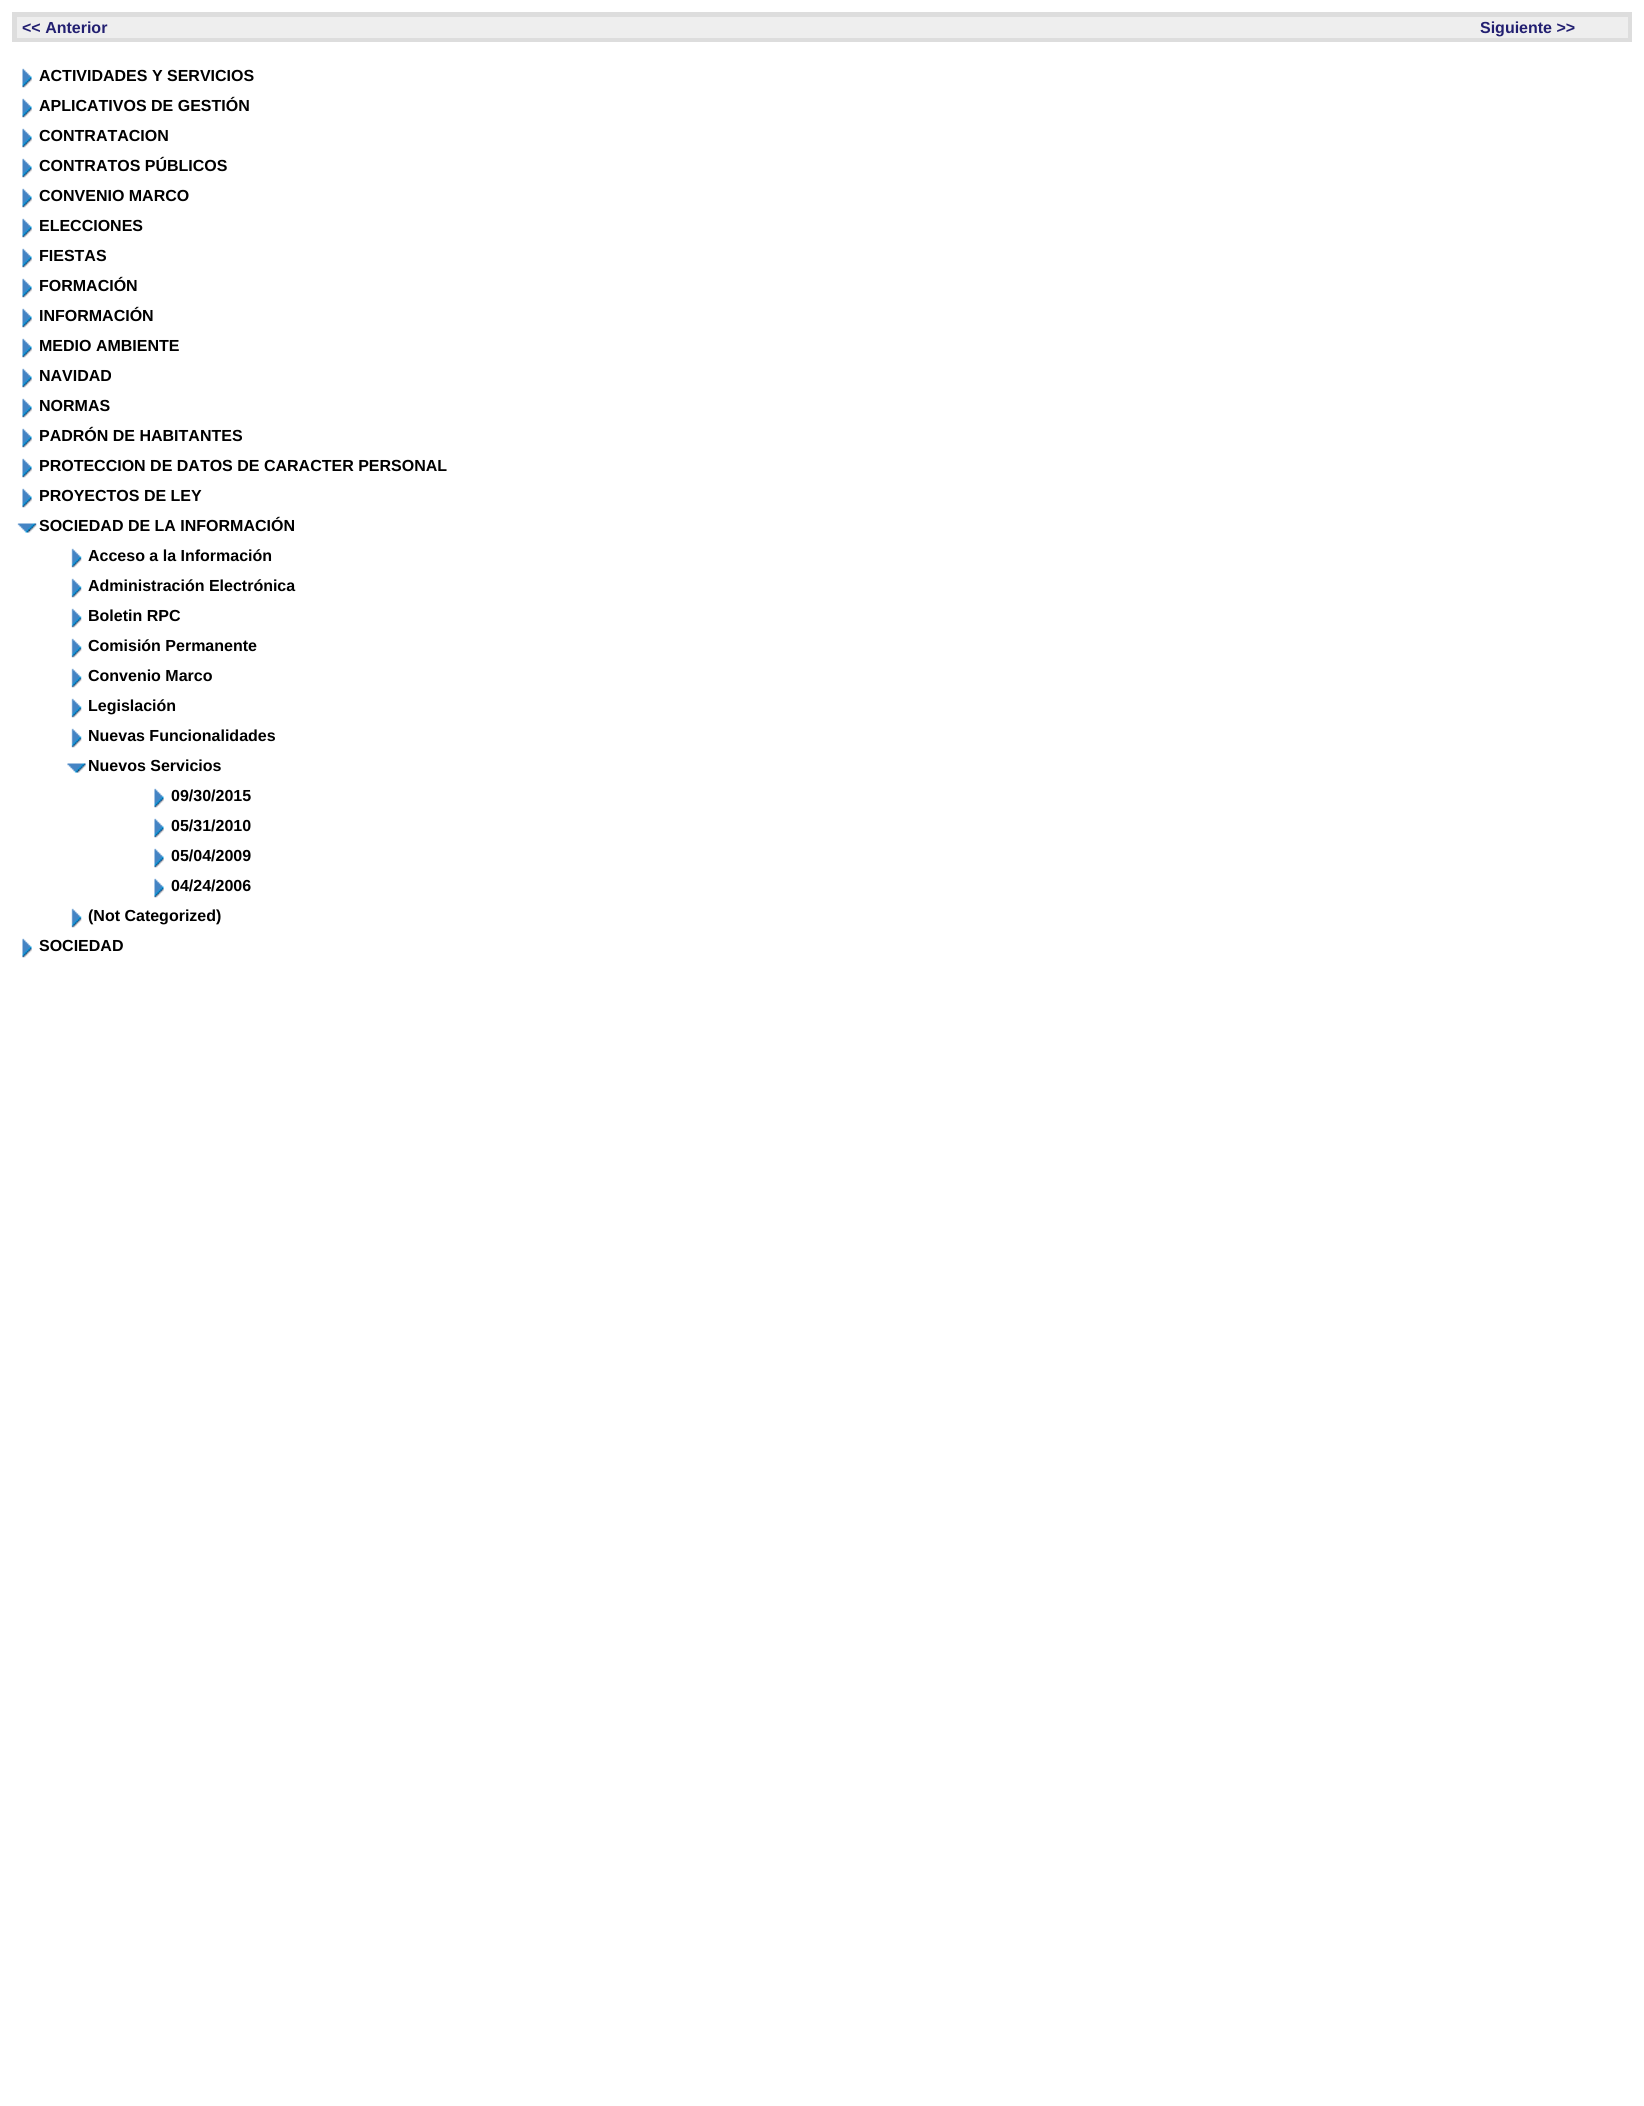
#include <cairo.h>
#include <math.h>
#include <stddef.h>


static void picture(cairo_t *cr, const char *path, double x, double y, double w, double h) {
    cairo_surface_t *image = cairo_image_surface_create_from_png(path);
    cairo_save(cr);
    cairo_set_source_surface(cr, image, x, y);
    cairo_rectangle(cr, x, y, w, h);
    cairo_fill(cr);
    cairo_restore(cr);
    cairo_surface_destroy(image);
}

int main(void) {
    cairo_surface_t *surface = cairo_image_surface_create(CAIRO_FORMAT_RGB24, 1644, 2106);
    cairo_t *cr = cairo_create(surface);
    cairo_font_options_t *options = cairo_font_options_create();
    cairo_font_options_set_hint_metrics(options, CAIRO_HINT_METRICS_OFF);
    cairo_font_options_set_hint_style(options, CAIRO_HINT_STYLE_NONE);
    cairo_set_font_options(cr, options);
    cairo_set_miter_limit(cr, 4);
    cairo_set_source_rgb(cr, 1, 1, 1);
    cairo_paint(cr);
    cairo_set_source_rgb(cr, 0.867, 0.867, 0.867);
    cairo_rectangle(cr, 12, 12, 1620, 30);
    cairo_fill(cr);
    cairo_set_source_rgb(cr, 0.933, 0.933, 0.933);
    cairo_rectangle(cr, 17, 17, 1611, 21);
    cairo_fill(cr);
    cairo_select_font_face(cr, "Liberation Sans", CAIRO_FONT_SLANT_NORMAL, CAIRO_FONT_WEIGHT_BOLD);
    cairo_set_font_size(cr, 16);
    cairo_set_source_rgb(cr, 0.133, 0.122, 0.443);
    cairo_move_to(cr, 22, 33);
    cairo_show_text(cr, "<< Anterior");
    cairo_move_to(cr, 1480, 33);
    cairo_show_text(cr, "Siguiente >>");
    picture(cr, "img1.png", 22, 68, 10, 20);
    cairo_set_source_rgb(cr, 0, 0, 0);
    cairo_move_to(cr, 39, 81);
    cairo_show_text(cr, "ACTIVIDADES Y SERVICIOS");
    picture(cr, "img1.png", 22, 98, 10, 20);
    cairo_move_to(cr, 39, 111);
    cairo_show_text(cr, "APLICATIVOS DE GESTIÓN");
    picture(cr, "img1.png", 22, 128, 10, 20);
    cairo_move_to(cr, 39, 141);
    cairo_show_text(cr, "CONTRATACION");
    picture(cr, "img1.png", 22, 158, 10, 20);
    cairo_move_to(cr, 39, 171);
    cairo_show_text(cr, "CONTRATOS PÚBLICOS");
    picture(cr, "img1.png", 22, 188, 10, 20);
    cairo_move_to(cr, 39, 201);
    cairo_show_text(cr, "CONVENIO MARCO");
    picture(cr, "img1.png", 22, 218, 10, 20);
    cairo_move_to(cr, 39, 231);
    cairo_show_text(cr, "ELECCIONES");
    picture(cr, "img1.png", 22, 248, 10, 20);
    cairo_move_to(cr, 39, 261);
    cairo_show_text(cr, "FIESTAS");
    picture(cr, "img1.png", 22, 278, 10, 20);
    cairo_move_to(cr, 39, 291);
    cairo_show_text(cr, "FORMACIÓN");
    picture(cr, "img1.png", 22, 308, 10, 20);
    cairo_move_to(cr, 39, 321);
    cairo_show_text(cr, "INFORMACIÓN");
    picture(cr, "img1.png", 22, 338, 10, 20);
    cairo_move_to(cr, 39, 351);
    cairo_show_text(cr, "MEDIO AMBIENTE");
    picture(cr, "img1.png", 22, 368, 10, 20);
    cairo_move_to(cr, 39, 381);
    cairo_show_text(cr, "NAVIDAD");
    picture(cr, "img1.png", 22, 398, 10, 20);
    cairo_move_to(cr, 39, 411);
    cairo_show_text(cr, "NORMAS");
    picture(cr, "img1.png", 22, 428, 10, 20);
    cairo_move_to(cr, 39, 441);
    cairo_show_text(cr, "PADRÓN DE HABITANTES");
    picture(cr, "img1.png", 22, 458, 10, 20);
    cairo_move_to(cr, 39, 471);
    cairo_show_text(cr, "PROTECCION DE DATOS DE CARACTER PERSONAL");
    picture(cr, "img1.png", 22, 488, 10, 20);
    cairo_move_to(cr, 39, 501);
    cairo_show_text(cr, "PROYECTOS DE LEY");
    picture(cr, "img2.png", 17, 523, 20, 10);
    cairo_move_to(cr, 39, 531);
    cairo_show_text(cr, "SOCIEDAD DE LA INFORMACIÓN");
    picture(cr, "img3.png", 71, 548, 11, 20);
    cairo_move_to(cr, 88, 561);
    cairo_show_text(cr, "Acceso a la Información");
    picture(cr, "img3.png", 71, 578, 11, 20);
    cairo_move_to(cr, 88, 591);
    cairo_show_text(cr, "Administración Electrónica");
    picture(cr, "img3.png", 71, 608, 11, 20);
    cairo_move_to(cr, 88, 621);
    cairo_show_text(cr, "Boletin RPC");
    picture(cr, "img3.png", 71, 638, 11, 20);
    cairo_move_to(cr, 88, 651);
    cairo_show_text(cr, "Comisión Permanente");
    picture(cr, "img3.png", 71, 668, 11, 20);
    cairo_move_to(cr, 88, 681);
    cairo_show_text(cr, "Convenio Marco");
    picture(cr, "img3.png", 71, 698, 11, 20);
    cairo_move_to(cr, 88, 711);
    cairo_show_text(cr, "Legislación");
    picture(cr, "img3.png", 71, 728, 11, 20);
    cairo_move_to(cr, 88, 741);
    cairo_show_text(cr, "Nuevas Funcionalidades");
    picture(cr, "img4.png", 67, 763, 19, 10);
    cairo_move_to(cr, 88, 771);
    cairo_show_text(cr, "Nuevos Servicios");
    picture(cr, "img1.png", 154, 788, 10, 20);
    cairo_move_to(cr, 171, 801);
    cairo_show_text(cr, "09/30/2015");
    picture(cr, "img1.png", 154, 818, 10, 20);
    cairo_move_to(cr, 171, 831);
    cairo_show_text(cr, "05/31/2010");
    picture(cr, "img1.png", 154, 848, 10, 20);
    cairo_move_to(cr, 171, 861);
    cairo_show_text(cr, "05/04/2009");
    picture(cr, "img1.png", 154, 878, 10, 20);
    cairo_move_to(cr, 171, 891);
    cairo_show_text(cr, "04/24/2006");
    picture(cr, "img3.png", 71, 908, 11, 20);
    cairo_move_to(cr, 88, 921);
    cairo_show_text(cr, "(Not Categorized)");
    picture(cr, "img1.png", 22, 938, 10, 20);
    cairo_move_to(cr, 39, 951);
    cairo_show_text(cr, "SOCIEDAD");
    cairo_surface_write_to_png(surface, "page.png");
    cairo_font_options_destroy(options);
    cairo_destroy(cr);
    cairo_surface_destroy(surface);
    return 0;
}
